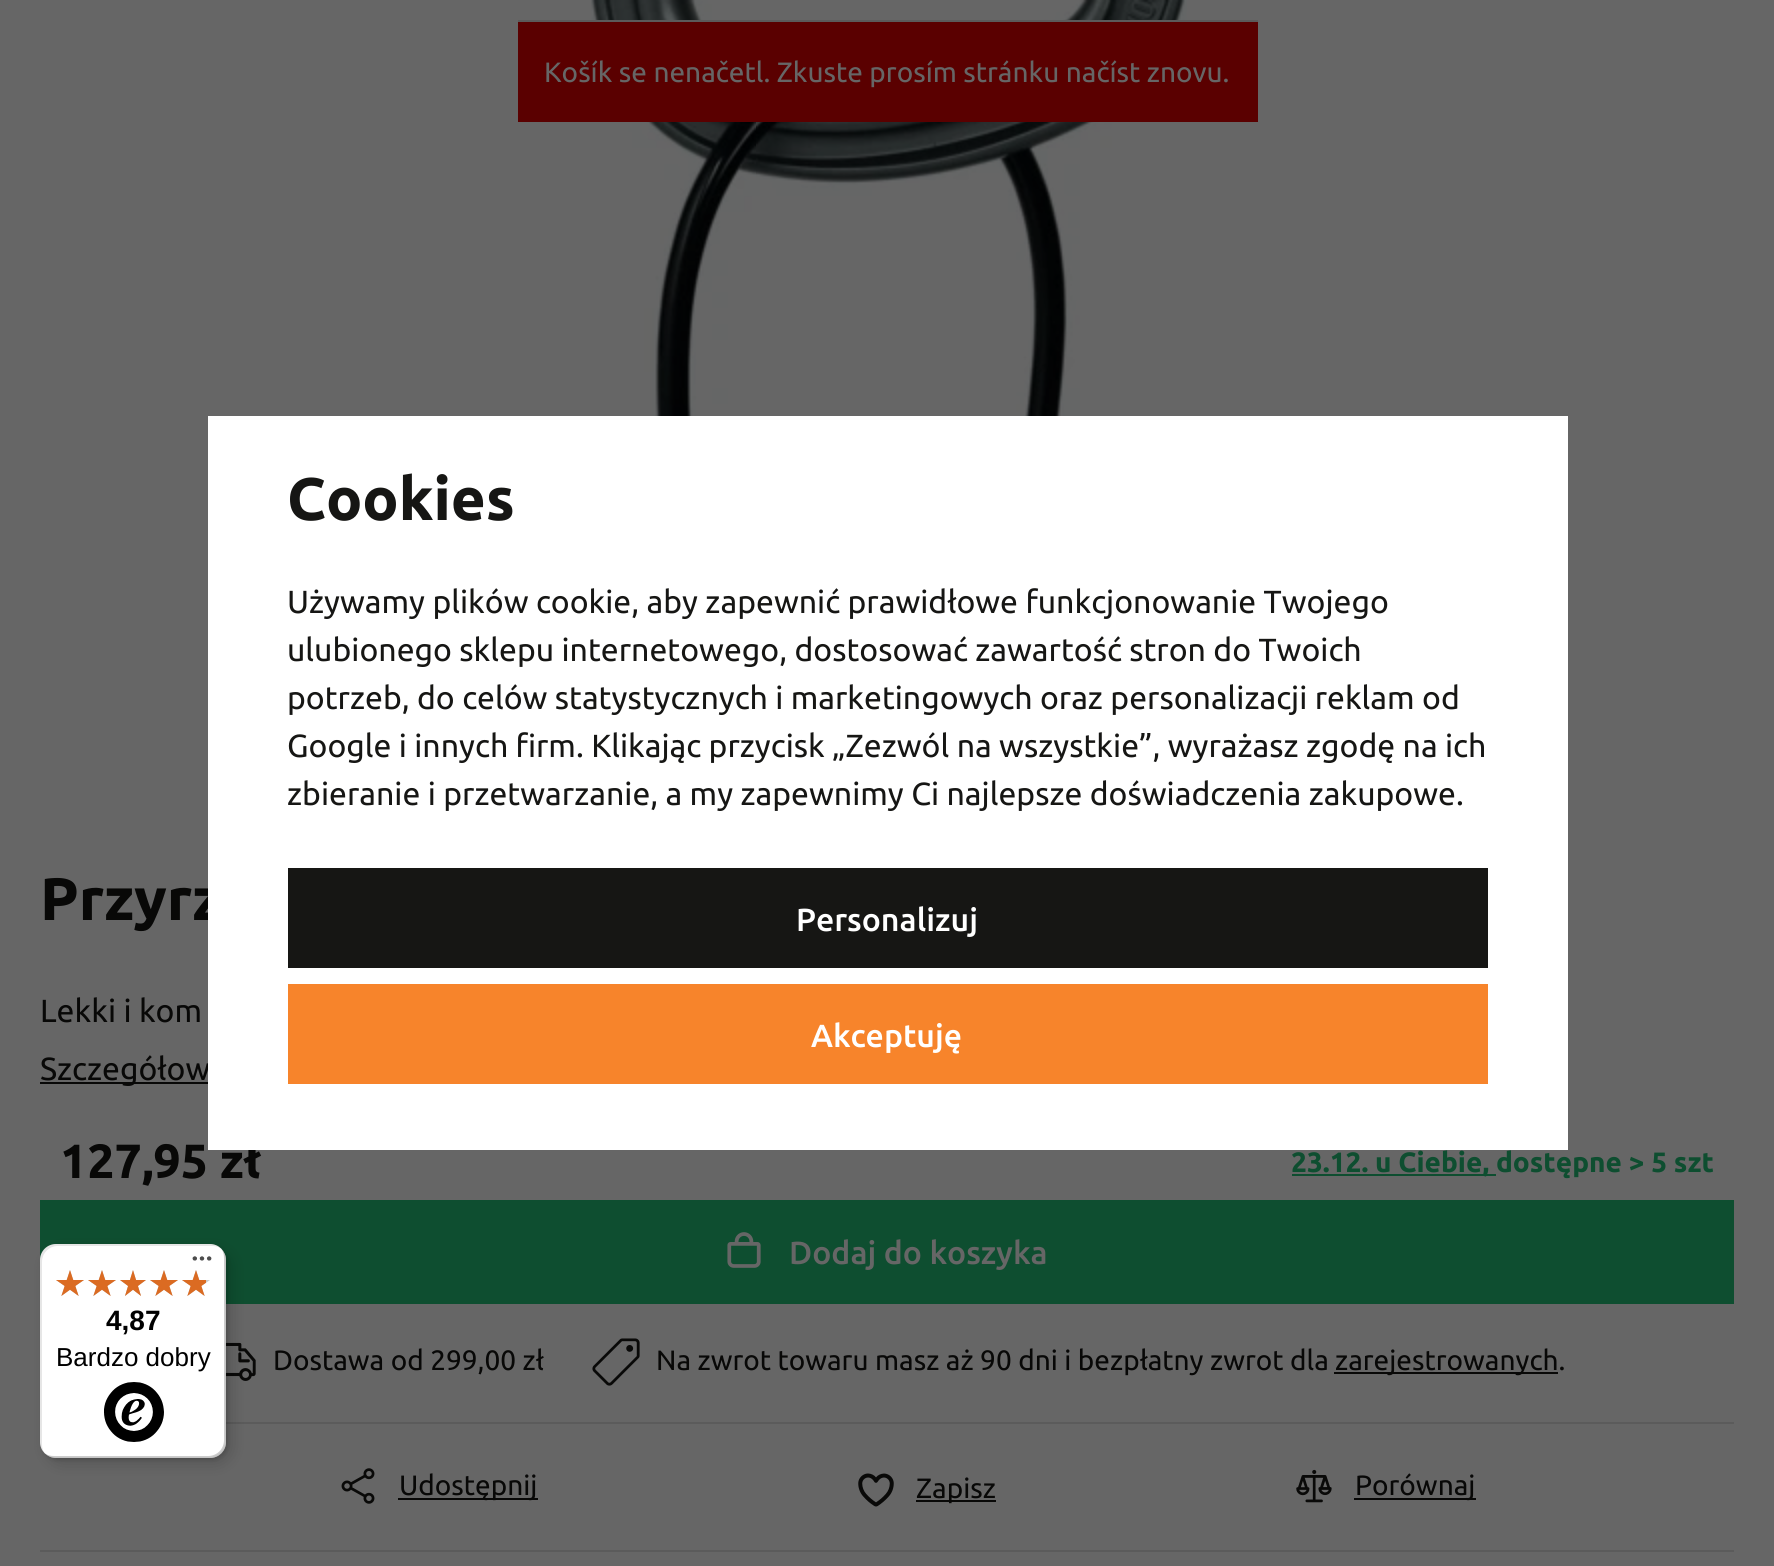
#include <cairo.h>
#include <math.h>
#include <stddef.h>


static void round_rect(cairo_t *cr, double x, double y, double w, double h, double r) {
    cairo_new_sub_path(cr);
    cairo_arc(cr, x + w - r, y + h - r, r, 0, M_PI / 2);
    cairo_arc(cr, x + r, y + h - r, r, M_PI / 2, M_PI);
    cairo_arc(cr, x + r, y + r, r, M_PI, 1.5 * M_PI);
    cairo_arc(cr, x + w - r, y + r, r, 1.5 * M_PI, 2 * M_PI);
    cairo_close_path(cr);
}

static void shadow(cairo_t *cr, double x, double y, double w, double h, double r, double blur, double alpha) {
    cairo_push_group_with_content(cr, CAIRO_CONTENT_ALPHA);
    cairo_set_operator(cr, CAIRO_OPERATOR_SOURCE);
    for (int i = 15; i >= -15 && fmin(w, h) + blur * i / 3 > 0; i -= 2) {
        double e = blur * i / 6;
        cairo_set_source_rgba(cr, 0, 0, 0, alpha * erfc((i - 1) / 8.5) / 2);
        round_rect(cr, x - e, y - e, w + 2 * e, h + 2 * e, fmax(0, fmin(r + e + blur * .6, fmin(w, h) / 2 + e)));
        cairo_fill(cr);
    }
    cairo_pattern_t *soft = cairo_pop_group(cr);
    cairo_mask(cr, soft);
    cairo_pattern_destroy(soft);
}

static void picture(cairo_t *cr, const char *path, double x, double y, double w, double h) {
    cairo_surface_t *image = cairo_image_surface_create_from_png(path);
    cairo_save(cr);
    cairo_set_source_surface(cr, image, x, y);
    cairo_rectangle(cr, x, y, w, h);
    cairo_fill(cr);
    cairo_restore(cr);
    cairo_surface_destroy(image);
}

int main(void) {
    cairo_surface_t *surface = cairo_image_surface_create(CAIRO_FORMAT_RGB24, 1774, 1566);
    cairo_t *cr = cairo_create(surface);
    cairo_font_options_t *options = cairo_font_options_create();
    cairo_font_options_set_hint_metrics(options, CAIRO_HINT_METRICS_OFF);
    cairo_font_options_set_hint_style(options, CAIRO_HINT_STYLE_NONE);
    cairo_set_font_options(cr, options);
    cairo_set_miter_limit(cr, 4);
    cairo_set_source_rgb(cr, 0.4, 0.4, 0.4);
    cairo_paint(cr);
    picture(cr, "img1.png", 591, 0, 596, 416);
    cairo_set_source_rgb(cr, 0.353, 0, 0);
    cairo_rectangle(cr, 518, 22, 740, 100);
    cairo_fill(cr);
    cairo_set_source_rgb(cr, 0.357, 0.357, 0.357);
    cairo_rectangle(cr, 518, 20, 740, 2);
    cairo_fill(cr);
    cairo_select_font_face(cr, "Ubuntu", CAIRO_FONT_SLANT_NORMAL, CAIRO_FONT_WEIGHT_NORMAL);
    cairo_set_font_size(cr, 28);
    cairo_set_source_rgb(cr, 0.4, 0.4, 0.4);
    cairo_move_to(cr, 544, 82);
    cairo_show_text(cr, "Košík se nenačetl. Zkuste prosím stránku načíst znovu.");
    cairo_select_font_face(cr, "Ubuntu", CAIRO_FONT_SLANT_NORMAL, CAIRO_FONT_WEIGHT_BOLD);
    cairo_set_font_size(cr, 60);
    cairo_set_source_rgb(cr, 0.035, 0.035, 0.031);
    cairo_move_to(cr, 40, 920);
    cairo_show_text(cr, "Przyrz");
    cairo_rectangle(cr, 40, 1082, 168, 2);
    cairo_fill(cr);
    cairo_select_font_face(cr, "Ubuntu", CAIRO_FONT_SLANT_NORMAL, CAIRO_FONT_WEIGHT_NORMAL);
    cairo_set_font_size(cr, 32);
    cairo_move_to(cr, 40, 1080);
    cairo_show_text(cr, "Szczegółow");
    cairo_select_font_face(cr, "Ubuntu", CAIRO_FONT_SLANT_NORMAL, CAIRO_FONT_WEIGHT_BOLD);
    cairo_set_font_size(cr, 48);
    cairo_move_to(cr, 60, 1178);
    cairo_show_text(cr, "127,95 zł");
    cairo_set_source_rgb(cr, 1, 1, 1);
    cairo_rectangle(cr, 208, 416, 1360, 734);
    cairo_fill(cr);
    cairo_set_font_size(cr, 60);
    cairo_set_source_rgb(cr, 0.086, 0.086, 0.082);
    cairo_move_to(cr, 287, 520);
    cairo_show_text(cr, "Cookies");
    cairo_select_font_face(cr, "Ubuntu", CAIRO_FONT_SLANT_NORMAL, CAIRO_FONT_WEIGHT_NORMAL);
    cairo_set_font_size(cr, 32);
    cairo_move_to(cr, 287, 613);
    cairo_show_text(cr, "Używamy plików cookie, aby zapewnić prawidłowe funkcjonowanie Twojego");
    cairo_move_to(cr, 287, 661);
    cairo_show_text(cr, "ulubionego sklepu internetowego, dostosować zawartość stron do Twoich");
    cairo_move_to(cr, 287, 709);
    cairo_show_text(cr, "potrzeb, do celów statystycznych i marketingowych oraz personalizacji reklam od");
    cairo_move_to(cr, 287, 757);
    cairo_show_text(cr, "Google i innych firm. Klikając przycisk „Zezwól na wszystkie”, wyrażasz zgodę na ich");
    cairo_move_to(cr, 287, 805);
    cairo_show_text(cr, "zbieranie i przetwarzanie, a my zapewnimy Ci najlepsze doświadczenia zakupowe.");
    cairo_rectangle(cr, 288, 868, 1200, 100);
    cairo_fill(cr);
    cairo_select_font_face(cr, "Ubuntu Medium", CAIRO_FONT_SLANT_NORMAL, CAIRO_FONT_WEIGHT_NORMAL);
    cairo_set_source_rgb(cr, 1, 1, 1);
    cairo_move_to(cr, 796, 931);
    cairo_show_text(cr, "Personalizuj");
    cairo_set_source_rgb(cr, 0.965, 0.518, 0.169);
    cairo_rectangle(cr, 288, 984, 1200, 100);
    cairo_fill(cr);
    cairo_set_source_rgb(cr, 1, 1, 1);
    cairo_move_to(cr, 811, 1047);
    cairo_show_text(cr, "Akceptuję");
    cairo_select_font_face(cr, "Ubuntu", CAIRO_FONT_SLANT_NORMAL, CAIRO_FONT_WEIGHT_NORMAL);
    cairo_set_source_rgb(cr, 0.035, 0.035, 0.031);
    cairo_move_to(cr, 40, 1022);
    cairo_show_text(cr, "Lekki i kom");
    cairo_set_source_rgb(cr, 0.055, 0.306, 0.188);
    cairo_rectangle(cr, 1292, 1174, 204, 2);
    cairo_fill(cr);
    cairo_select_font_face(cr, "Ubuntu", CAIRO_FONT_SLANT_NORMAL, CAIRO_FONT_WEIGHT_BOLD);
    cairo_set_font_size(cr, 28);
    cairo_move_to(cr, 1291, 1172);
    cairo_show_text(cr, "23.12. u Ciebie, dostępne > 5 szt");
    cairo_rectangle(cr, 40, 1200, 1694, 104);
    cairo_fill(cr);
    picture(cr, "img2.png", 727, 1232, 34, 36);
    cairo_select_font_face(cr, "Ubuntu Medium", CAIRO_FONT_SLANT_NORMAL, CAIRO_FONT_WEIGHT_NORMAL);
    cairo_set_font_size(cr, 32);
    cairo_set_source_rgb(cr, 0.4, 0.4, 0.4);
    cairo_move_to(cr, 789, 1264);
    cairo_show_text(cr, "Dodaj do koszyka");
    cairo_set_source_rgb(cr, 0.357, 0.357, 0.357);
    cairo_rectangle(cr, 226, 1422, 1508, 2);
    cairo_fill(cr);
    picture(cr, "img3.png", 226, 1342, 30, 39);
    cairo_select_font_face(cr, "Ubuntu", CAIRO_FONT_SLANT_NORMAL, CAIRO_FONT_WEIGHT_NORMAL);
    cairo_set_font_size(cr, 28);
    cairo_set_source_rgb(cr, 0.035, 0.035, 0.031);
    cairo_move_to(cr, 273, 1370);
    cairo_show_text(cr, "Dostawa od 299,00 zł");
    picture(cr, "img4.png", 592, 1338, 48, 48);
    cairo_move_to(cr, 656, 1370);
    cairo_show_text(cr, "Na zwrot towaru masz aż 90 dni i bezpłatny zwrot dla");
    cairo_rectangle(cr, 1334, 1372, 224, 2);
    cairo_fill(cr);
    cairo_move_to(cr, 1335, 1370);
    cairo_show_text(cr, "zarejestrowanych.");
    picture(cr, "img5.png", 341, 1468, 34, 36);
    cairo_rectangle(cr, 398, 1498, 140, 2);
    cairo_fill(cr);
    cairo_move_to(cr, 399, 1495);
    cairo_show_text(cr, "Udostępnij");
    picture(cr, "img6.png", 858, 1473, 36, 34);
    cairo_rectangle(cr, 916, 1500, 80, 2);
    cairo_fill(cr);
    cairo_move_to(cr, 916, 1498);
    cairo_show_text(cr, "Zapisz");
    picture(cr, "img7.png", 1296, 1469, 36, 34);
    cairo_rectangle(cr, 1354, 1498, 122, 2);
    cairo_fill(cr);
    cairo_move_to(cr, 1355, 1495);
    cairo_show_text(cr, "Porównaj");
    cairo_set_source_rgb(cr, 0.357, 0.357, 0.357);
    cairo_rectangle(cr, 40, 1550, 1694, 2);
    cairo_fill(cr);
    cairo_set_source_rgb(cr, 0, 0, 0);
    shadow(cr, 46, 1250, 186, 214, 16, 8, 0.15);
    shadow(cr, 42, 1246, 186, 214, 16, 2, 0.15);
    cairo_set_source_rgb(cr, 1, 1, 1);
    round_rect(cr, 40, 1244, 186, 214, 16);
    cairo_fill(cr);
    cairo_set_source_rgba(cr, 0, 0, 0, 0.1);
    cairo_new_path(cr);
    cairo_move_to(cr, 58, 1246);
    cairo_line_to(cr, 212, 1246);
    cairo_curve_to(cr, 216, 1246, 219, 1247, 222, 1249);
    cairo_curve_to(cr, 219, 1246, 215, 1244, 210, 1244);
    cairo_line_to(cr, 56, 1244);
    cairo_curve_to(cr, 47, 1244, 40, 1251, 40, 1260);
    cairo_line_to(cr, 40, 1442);
    cairo_curve_to(cr, 40, 1447, 42, 1451, 45, 1454);
    cairo_curve_to(cr, 43, 1451, 42, 1448, 42, 1444);
    cairo_line_to(cr, 42, 1262);
    cairo_curve_to(cr, 42, 1253, 49, 1246, 58, 1246);
    cairo_close_path(cr);
    cairo_fill(cr);
    cairo_set_source_rgba(cr, 0, 0, 0, 0.2);
    cairo_new_path(cr);
    cairo_move_to(cr, 44, 1453);
    cairo_curve_to(cr, 47, 1456, 51, 1458, 56, 1458);
    cairo_line_to(cr, 210, 1458);
    cairo_curve_to(cr, 219, 1458, 226, 1451, 226, 1442);
    cairo_line_to(cr, 226, 1260);
    cairo_curve_to(cr, 226, 1255, 224, 1251, 221, 1248);
    cairo_curve_to(cr, 223, 1251, 224, 1254, 224, 1258);
    cairo_line_to(cr, 224, 1440);
    cairo_curve_to(cr, 224, 1449, 217, 1456, 208, 1456);
    cairo_line_to(cr, 54, 1456);
    cairo_curve_to(cr, 50, 1456, 47, 1455, 44, 1453);
    cairo_close_path(cr);
    cairo_fill(cr);
    cairo_set_source_rgba(cr, 0.196, 0.196, 0.196, 0.2);
    cairo_new_path(cr);
    cairo_move_to(cr, 45, 1453);
    cairo_curve_to(cr, 48, 1456, 52, 1458, 56, 1458);
    cairo_line_to(cr, 210, 1458);
    cairo_curve_to(cr, 219, 1458, 226, 1451, 226, 1442);
    cairo_line_to(cr, 226, 1260);
    cairo_curve_to(cr, 226, 1256, 224, 1252, 221, 1249);
    cairo_curve_to(cr, 224, 1252, 225, 1255, 225, 1259);
    cairo_line_to(cr, 225, 1441);
    cairo_curve_to(cr, 225, 1450, 218, 1457, 209, 1457);
    cairo_line_to(cr, 55, 1457);
    cairo_curve_to(cr, 51, 1457, 48, 1456, 45, 1453);
    cairo_close_path(cr);
    cairo_fill(cr);
    cairo_set_source_rgba(cr, 1, 1, 1, 0.3);
    cairo_new_path(cr);
    cairo_move_to(cr, 45, 1453);
    cairo_curve_to(cr, 48, 1456, 52, 1458, 56, 1458);
    cairo_line_to(cr, 210, 1458);
    cairo_curve_to(cr, 219, 1458, 226, 1451, 226, 1442);
    cairo_line_to(cr, 226, 1260);
    cairo_curve_to(cr, 226, 1256, 224, 1252, 221, 1249);
    cairo_curve_to(cr, 224, 1252, 225, 1255, 225, 1259);
    cairo_line_to(cr, 225, 1441);
    cairo_curve_to(cr, 225, 1450, 218, 1457, 209, 1457);
    cairo_line_to(cr, 55, 1457);
    cairo_curve_to(cr, 51, 1457, 48, 1456, 45, 1453);
    cairo_close_path(cr);
    cairo_fill(cr);
    picture(cr, "img8.png", 192, 1256, 20, 5);
    picture(cr, "img9.png", 56, 1270, 28, 26);
    picture(cr, "img9.png", 88, 1270, 28, 26);
    picture(cr, "img10.png", 120, 1270, 26, 26);
    picture(cr, "img9.png", 150, 1270, 28, 26);
    picture(cr, "img9.png", 182, 1270, 28, 26);
    picture(cr, "img11.png", 56, 1270, 28, 26);
    picture(cr, "img11.png", 88, 1270, 28, 26);
    picture(cr, "img12.png", 120, 1270, 26, 26);
    picture(cr, "img11.png", 150, 1270, 28, 26);
    picture(cr, "img13.png", 182, 1270, 24, 26);
    cairo_select_font_face(cr, "Liberation Sans", CAIRO_FONT_SLANT_NORMAL, CAIRO_FONT_WEIGHT_BOLD);
    cairo_set_source_rgb(cr, 0, 0, 0);
    cairo_move_to(cr, 106, 1330);
    cairo_show_text(cr, "4,87");
    cairo_select_font_face(cr, "Liberation Sans", CAIRO_FONT_SLANT_NORMAL, CAIRO_FONT_WEIGHT_NORMAL);
    cairo_set_font_size(cr, 26);
    cairo_move_to(cr, 56, 1366);
    cairo_show_text(cr, "Bardzo dobry");
    picture(cr, "img14.png", 104, 1382, 60, 60);
    cairo_surface_write_to_png(surface, "page.png");
    cairo_font_options_destroy(options);
    cairo_destroy(cr);
    cairo_surface_destroy(surface);
    return 0;
}
